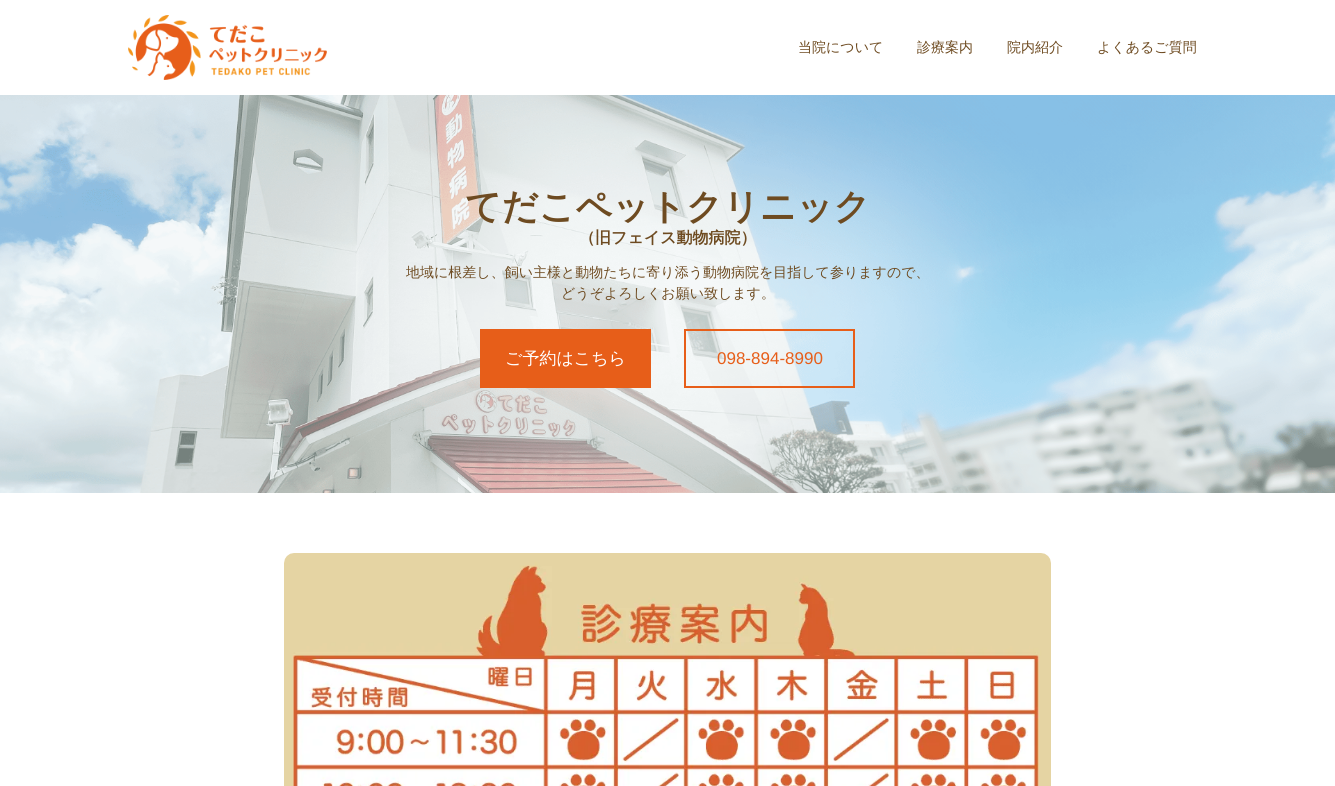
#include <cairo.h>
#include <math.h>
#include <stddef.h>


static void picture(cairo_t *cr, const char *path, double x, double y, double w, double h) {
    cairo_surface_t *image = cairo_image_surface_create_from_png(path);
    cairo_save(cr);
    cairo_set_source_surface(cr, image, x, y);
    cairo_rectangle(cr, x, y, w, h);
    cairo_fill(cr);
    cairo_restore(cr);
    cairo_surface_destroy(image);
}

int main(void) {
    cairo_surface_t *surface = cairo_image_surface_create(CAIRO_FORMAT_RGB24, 1335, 786);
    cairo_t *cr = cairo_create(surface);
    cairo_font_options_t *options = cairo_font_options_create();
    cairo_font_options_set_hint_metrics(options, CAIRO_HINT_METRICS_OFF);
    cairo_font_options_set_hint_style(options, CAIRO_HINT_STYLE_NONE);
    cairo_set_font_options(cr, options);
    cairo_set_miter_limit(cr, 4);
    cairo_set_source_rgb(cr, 1, 1, 1);
    cairo_paint(cr);
    picture(cr, "img1.png", 128, 15, 199, 65);
    cairo_select_font_face(cr, "WenQuanYi Zen Hei Medium", CAIRO_FONT_SLANT_NORMAL, CAIRO_FONT_WEIGHT_NORMAL);
    cairo_set_font_size(cr, 14);
    cairo_set_source_rgb(cr, 0.431, 0.294, 0.129);
    cairo_move_to(cr, 798, 52);
    cairo_show_text(cr, "当院について");
    cairo_move_to(cr, 917, 52);
    cairo_show_text(cr, "診療案内");
    cairo_move_to(cr, 1007, 52);
    cairo_show_text(cr, "院内紹介");
    cairo_move_to(cr, 1097, 52);
    cairo_show_text(cr, "よくあるご質問");
    picture(cr, "img2.png", 0, 95, 1335, 398);
    cairo_select_font_face(cr, "WenQuanYi Zen Hei", CAIRO_FONT_SLANT_NORMAL, CAIRO_FONT_WEIGHT_BOLD);
    cairo_set_font_size(cr, 36);
    cairo_move_to(cr, 465, 219);
    cairo_show_text(cr, "てだこペットクリニック");
    cairo_set_font_size(cr, 16);
    cairo_move_to(cr, 579, 243);
    cairo_show_text(cr, "（旧フェイス動物病院）");
    cairo_select_font_face(cr, "WenQuanYi Zen Hei Medium", CAIRO_FONT_SLANT_NORMAL, CAIRO_FONT_WEIGHT_NORMAL);
    cairo_set_font_size(cr, 14);
    cairo_move_to(cr, 406, 277);
    cairo_show_text(cr, "地域に根差し、飼い主様と動物たちに寄り添う動物病院を目指して参りますので、");
    cairo_move_to(cr, 561, 298);
    cairo_show_text(cr, "どうぞよろしくお願い致します。");
    cairo_set_source_rgb(cr, 0.906, 0.369, 0.098);
    cairo_rectangle(cr, 480, 329, 171, 59);
    cairo_fill(cr);
    cairo_set_font_size(cr, 17);
    cairo_set_source_rgb(cr, 1, 1, 1);
    cairo_move_to(cr, 505, 364);
    cairo_show_text(cr, "ご予約はこちら");
    cairo_rectangle(cr, 685, 330, 169, 57);
    cairo_set_source_rgb(cr, 0.906, 0.369, 0.098);
    cairo_stroke(cr);
    cairo_select_font_face(cr, "Liberation Sans", CAIRO_FONT_SLANT_NORMAL, CAIRO_FONT_WEIGHT_NORMAL);
    cairo_move_to(cr, 717, 364);
    cairo_show_text(cr, "098-894-8990");
    picture(cr, "img3.png", 284, 553, 767, 233);
    cairo_surface_write_to_png(surface, "page.png");
    cairo_font_options_destroy(options);
    cairo_destroy(cr);
    cairo_surface_destroy(surface);
    return 0;
}
